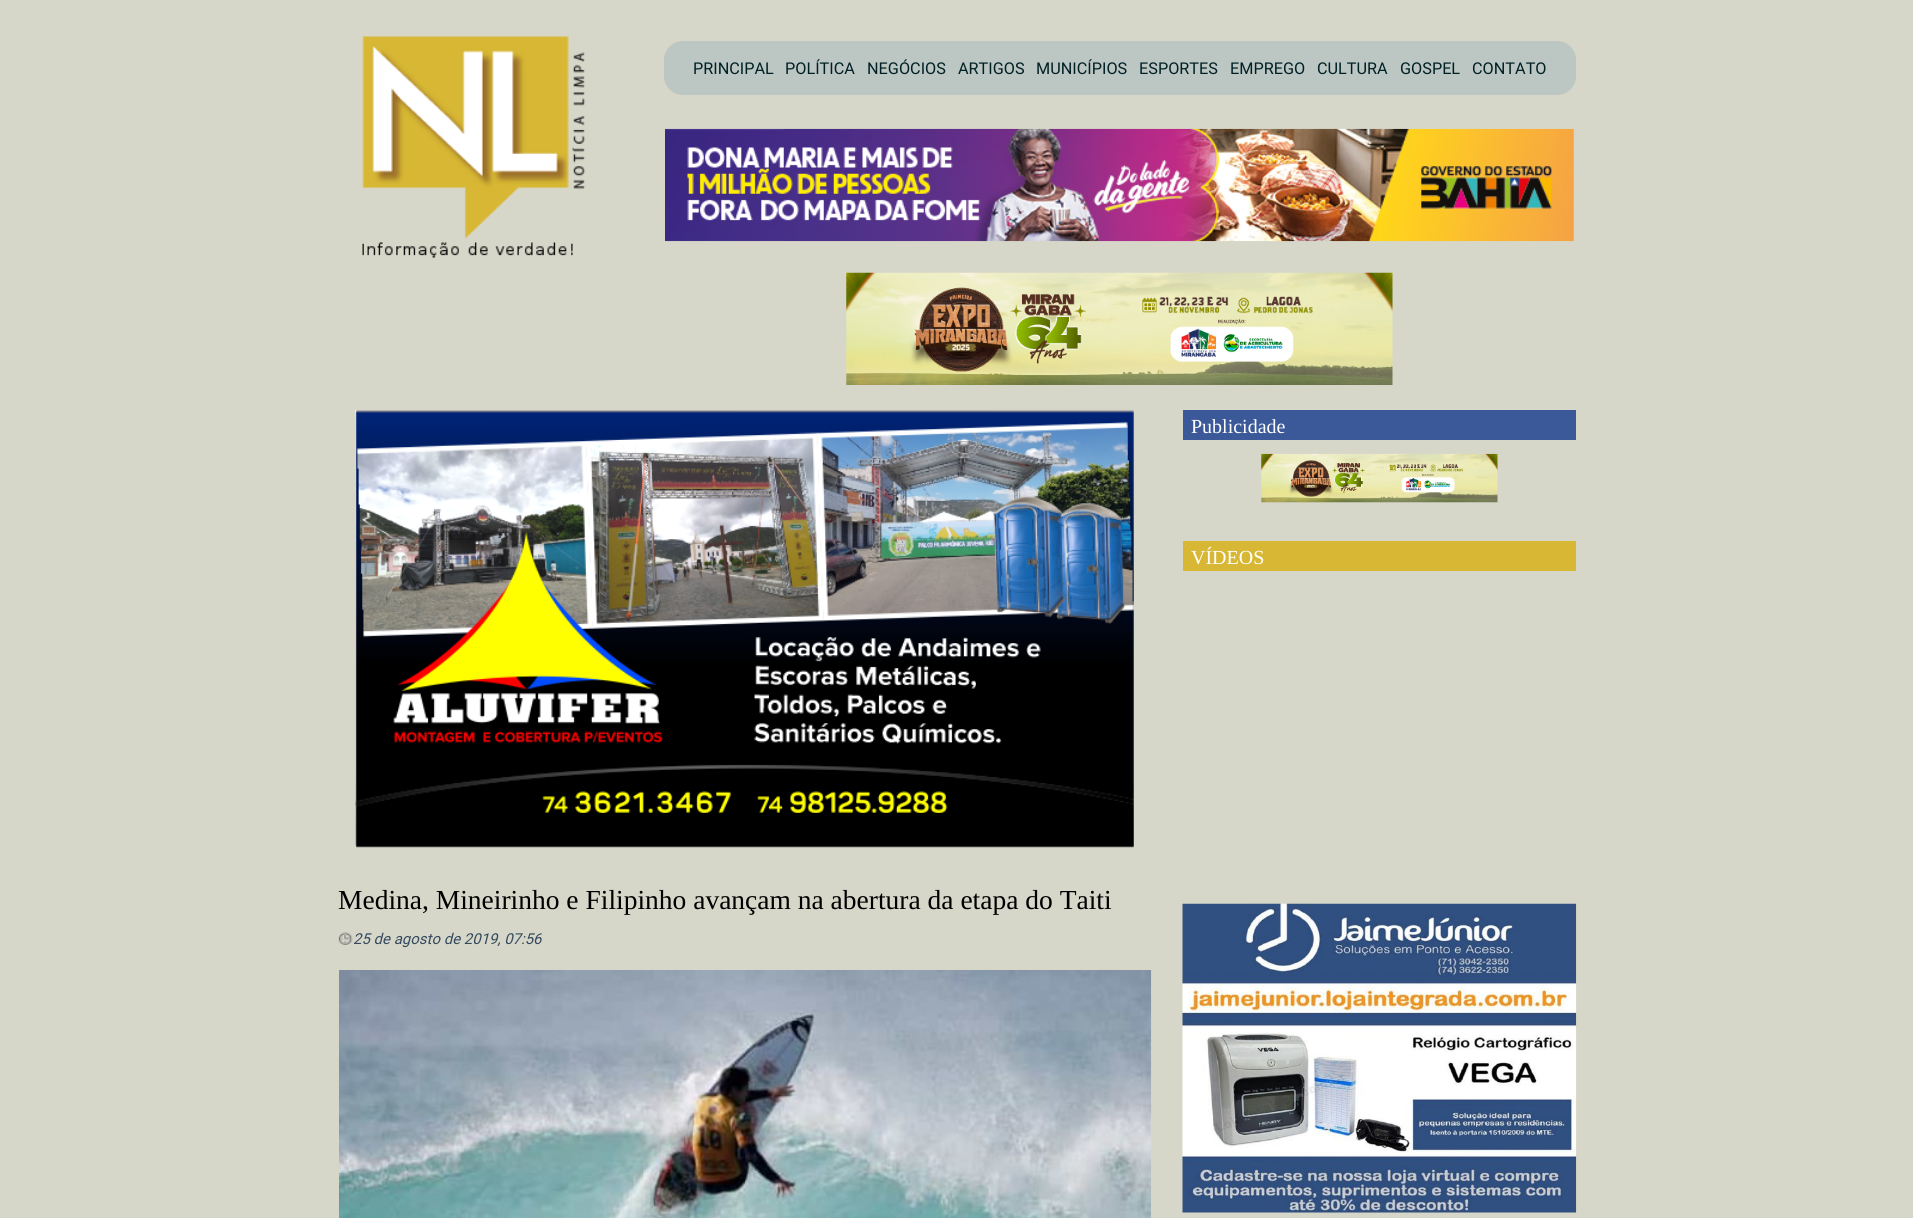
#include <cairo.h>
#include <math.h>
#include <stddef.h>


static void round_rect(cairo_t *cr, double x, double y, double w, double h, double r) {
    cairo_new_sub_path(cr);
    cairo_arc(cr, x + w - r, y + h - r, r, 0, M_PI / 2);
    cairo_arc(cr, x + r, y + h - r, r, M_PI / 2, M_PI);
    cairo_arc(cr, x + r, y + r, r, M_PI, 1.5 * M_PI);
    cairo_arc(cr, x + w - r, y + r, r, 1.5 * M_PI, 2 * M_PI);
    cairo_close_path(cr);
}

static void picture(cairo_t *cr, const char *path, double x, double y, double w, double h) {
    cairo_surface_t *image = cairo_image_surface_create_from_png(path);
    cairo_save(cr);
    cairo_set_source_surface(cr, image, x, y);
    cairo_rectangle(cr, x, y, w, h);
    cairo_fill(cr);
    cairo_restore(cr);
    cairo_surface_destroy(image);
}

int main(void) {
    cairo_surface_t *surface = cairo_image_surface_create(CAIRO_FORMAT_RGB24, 1913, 1218);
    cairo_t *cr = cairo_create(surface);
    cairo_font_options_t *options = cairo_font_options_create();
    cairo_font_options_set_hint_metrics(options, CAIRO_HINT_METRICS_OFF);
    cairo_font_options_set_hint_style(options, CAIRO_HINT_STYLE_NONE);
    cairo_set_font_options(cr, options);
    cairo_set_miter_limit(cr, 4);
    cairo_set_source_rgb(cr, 0.839, 0.843, 0.788);
    cairo_paint(cr);
    picture(cr, "img1.png", 362, 36, 224, 222);
    cairo_set_source_rgb(cr, 0.737, 0.776, 0.765);
    round_rect(cr, 664, 41, 912, 54, 19);
    cairo_fill(cr);
    cairo_select_font_face(cr, "Roboto", CAIRO_FONT_SLANT_NORMAL, CAIRO_FONT_WEIGHT_NORMAL);
    cairo_set_font_size(cr, 16.25);
    cairo_set_source_rgb(cr, 0, 0.125, 0.141);
    cairo_move_to(cr, 693, 74);
    cairo_show_text(cr, "PRINCIPAL");
    cairo_move_to(cr, 785, 74);
    cairo_show_text(cr, "POLÍTICA");
    cairo_move_to(cr, 867, 74);
    cairo_show_text(cr, "NEGÓCIOS");
    cairo_move_to(cr, 958, 74);
    cairo_show_text(cr, "ARTIGOS");
    cairo_move_to(cr, 1036, 74);
    cairo_show_text(cr, "MUNICÍPIOS");
    cairo_move_to(cr, 1139, 74);
    cairo_show_text(cr, "ESPORTES");
    cairo_move_to(cr, 1230, 74);
    cairo_show_text(cr, "EMPREGO");
    cairo_move_to(cr, 1317, 74);
    cairo_show_text(cr, "CULTURA");
    cairo_move_to(cr, 1400, 74);
    cairo_show_text(cr, "GOSPEL");
    cairo_move_to(cr, 1472, 74);
    cairo_show_text(cr, "CONTATO");
    picture(cr, "img2.png", 665, 128, 909, 114);
    picture(cr, "img3.png", 846, 272, 547, 113);
    cairo_set_source_rgb(cr, 0.231, 0.349, 0.596);
    cairo_rectangle(cr, 1183, 410, 393, 30);
    cairo_fill(cr);
    cairo_select_font_face(cr, "Liberation Serif", CAIRO_FONT_SLANT_NORMAL, CAIRO_FONT_WEIGHT_NORMAL);
    cairo_set_font_size(cr, 20);
    cairo_set_source_rgb(cr, 1, 1, 1);
    cairo_move_to(cr, 1191, 433);
    cairo_show_text(cr, "Publicidade");
    picture(cr, "img4.png", 1261, 453, 237, 50);
    cairo_set_source_rgb(cr, 0.843, 0.718, 0.2);
    cairo_rectangle(cr, 1183, 541, 393, 30);
    cairo_fill(cr);
    cairo_set_source_rgb(cr, 1, 1, 1);
    cairo_move_to(cr, 1191, 564);
    cairo_show_text(cr, "VÍDEOS");
    picture(cr, "img5.png", 1182, 903, 395, 310);
    picture(cr, "img6.png", 355, 410, 779, 438);
    cairo_set_font_size(cr, 27.5);
    cairo_set_source_rgb(cr, 0, 0, 0);
    cairo_move_to(cr, 338, 909);
    cairo_show_text(cr, "Medina, Mineirinho e Filipinho avançam na abertura da etapa do Taiti");
    picture(cr, "img7.png", 338, 932, 15, 13);
    cairo_select_font_face(cr, "Roboto", CAIRO_FONT_SLANT_ITALIC, CAIRO_FONT_WEIGHT_NORMAL);
    cairo_set_font_size(cr, 15);
    cairo_set_source_rgb(cr, 0.204, 0.286, 0.369);
    cairo_move_to(cr, 353, 944);
    cairo_show_text(cr, "25 de agosto de 2019, 07:56");
    picture(cr, "img8.png", 339, 970, 813, 248);
    cairo_surface_write_to_png(surface, "page.png");
    cairo_font_options_destroy(options);
    cairo_destroy(cr);
    cairo_surface_destroy(surface);
    return 0;
}
